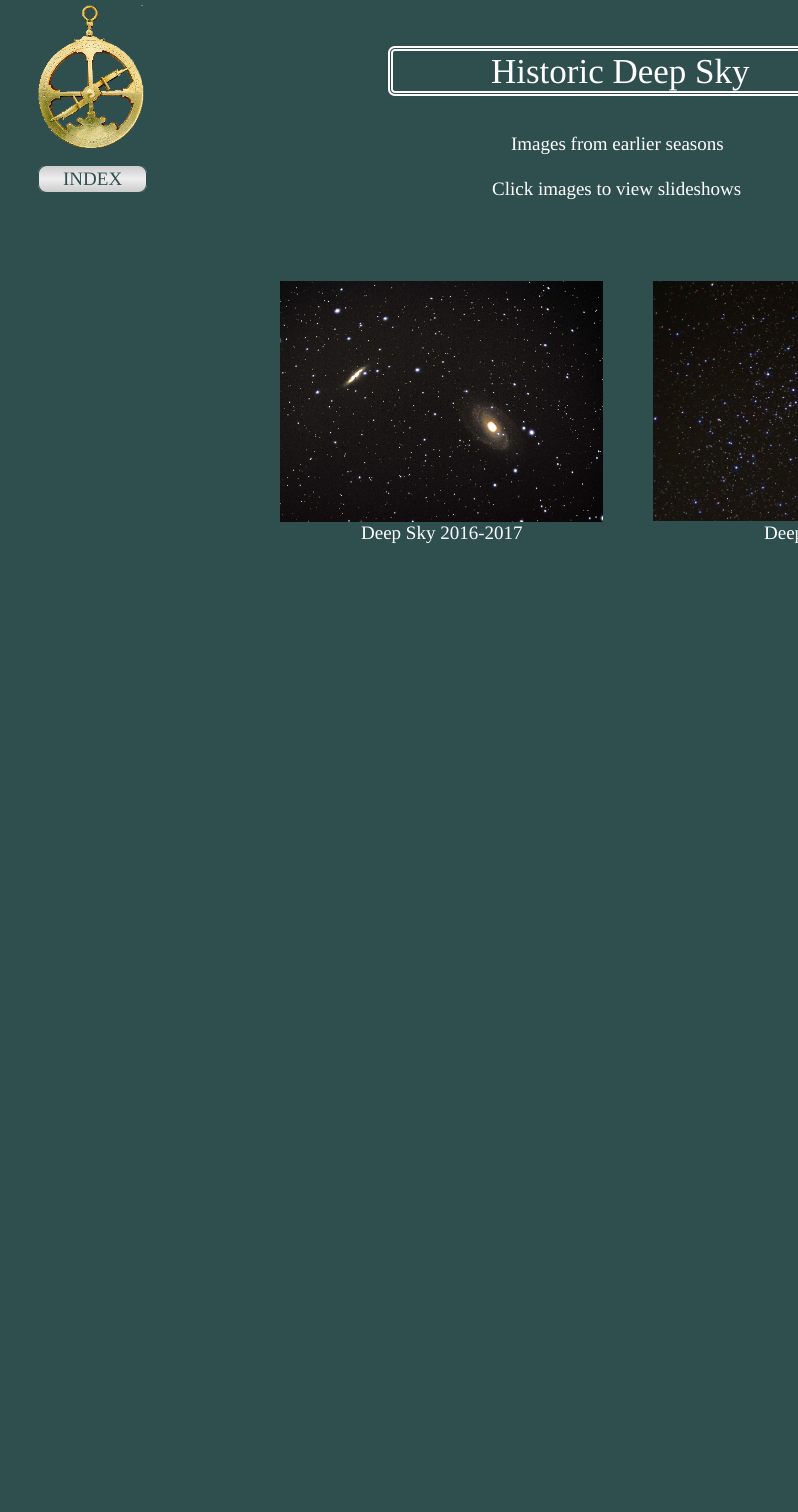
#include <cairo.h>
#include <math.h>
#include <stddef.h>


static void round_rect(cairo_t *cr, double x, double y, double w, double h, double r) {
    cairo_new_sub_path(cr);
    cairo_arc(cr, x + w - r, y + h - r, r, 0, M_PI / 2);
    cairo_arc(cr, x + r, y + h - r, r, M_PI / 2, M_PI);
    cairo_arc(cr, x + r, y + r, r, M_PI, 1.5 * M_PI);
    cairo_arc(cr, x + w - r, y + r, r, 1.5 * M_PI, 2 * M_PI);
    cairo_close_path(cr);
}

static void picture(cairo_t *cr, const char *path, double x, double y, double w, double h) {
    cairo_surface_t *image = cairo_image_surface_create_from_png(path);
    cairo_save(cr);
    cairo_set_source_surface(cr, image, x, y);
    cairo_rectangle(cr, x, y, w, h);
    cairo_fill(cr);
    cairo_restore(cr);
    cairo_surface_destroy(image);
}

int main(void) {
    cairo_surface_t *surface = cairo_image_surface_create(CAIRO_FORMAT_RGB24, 798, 1512);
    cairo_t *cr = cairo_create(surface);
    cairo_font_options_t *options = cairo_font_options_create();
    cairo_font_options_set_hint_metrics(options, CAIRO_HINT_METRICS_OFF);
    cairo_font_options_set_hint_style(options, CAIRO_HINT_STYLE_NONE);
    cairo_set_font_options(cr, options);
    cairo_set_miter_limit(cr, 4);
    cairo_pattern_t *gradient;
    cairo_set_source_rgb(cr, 0.184, 0.31, 0.31);
    cairo_paint(cr);
    picture(cr, "img1.png", 38, 5, 106, 144);
    round_rect(cr, 389, 47, 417, 48, 6);
    cairo_set_source_rgb(cr, 1, 1, 1);
    cairo_stroke(cr);
    round_rect(cr, 392, 50, 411, 42, 3);
    cairo_stroke(cr);
    cairo_select_font_face(cr, "Liberation Serif", CAIRO_FONT_SLANT_NORMAL, CAIRO_FONT_WEIGHT_NORMAL);
    cairo_set_font_size(cr, 35);
    cairo_move_to(cr, 491, 83);
    cairo_show_text(cr, "Historic Deep Sky");
    cairo_save(cr);
    round_rect(cr, 38, 165, 109, 28, 9);
    cairo_clip(cr);
    gradient = cairo_pattern_create_linear(93, 192, 93, 166);
    cairo_pattern_add_color_stop_rgba(gradient, 0, 0.8, 0.8, 0.8, 1);
    cairo_pattern_add_color_stop_rgba(gradient, 0.5, 0.933, 0.933, 0.933, 1);
    cairo_pattern_add_color_stop_rgba(gradient, 0.51, 0.933, 0.933, 0.933, 1);
    cairo_pattern_add_color_stop_rgba(gradient, 1, 0.8, 0.8, 0.8, 1);
    cairo_set_source(cr, gradient);
    cairo_pattern_destroy(gradient);
    cairo_rectangle(cr, 38, 166, 109, 26);
    cairo_fill(cr);
    cairo_restore(cr);
    round_rect(cr, 38.5, 165.5, 108, 27, 8.5);
    cairo_set_source_rgb(cr, 0.184, 0.31, 0.31);
    cairo_set_line_width(cr, 1);
    cairo_stroke(cr);
    cairo_set_font_size(cr, 19);
    cairo_move_to(cr, 63, 185);
    cairo_show_text(cr, "INDEX");
    cairo_set_source_rgb(cr, 1, 1, 1);
    cairo_move_to(cr, 511, 150);
    cairo_show_text(cr, "Images from earlier seasons");
    cairo_move_to(cr, 492, 195);
    cairo_show_text(cr, "Click images to view slideshows");
    picture(cr, "img2.png", 280, 281, 323, 241);
    picture(cr, "img3.png", 653, 281, 145, 240);
    cairo_move_to(cr, 361, 539);
    cairo_show_text(cr, "Deep Sky 2016-2017");
    cairo_move_to(cr, 764, 539);
    cairo_show_text(cr, "Deep");
    cairo_surface_write_to_png(surface, "page.png");
    cairo_font_options_destroy(options);
    cairo_destroy(cr);
    cairo_surface_destroy(surface);
    return 0;
}
